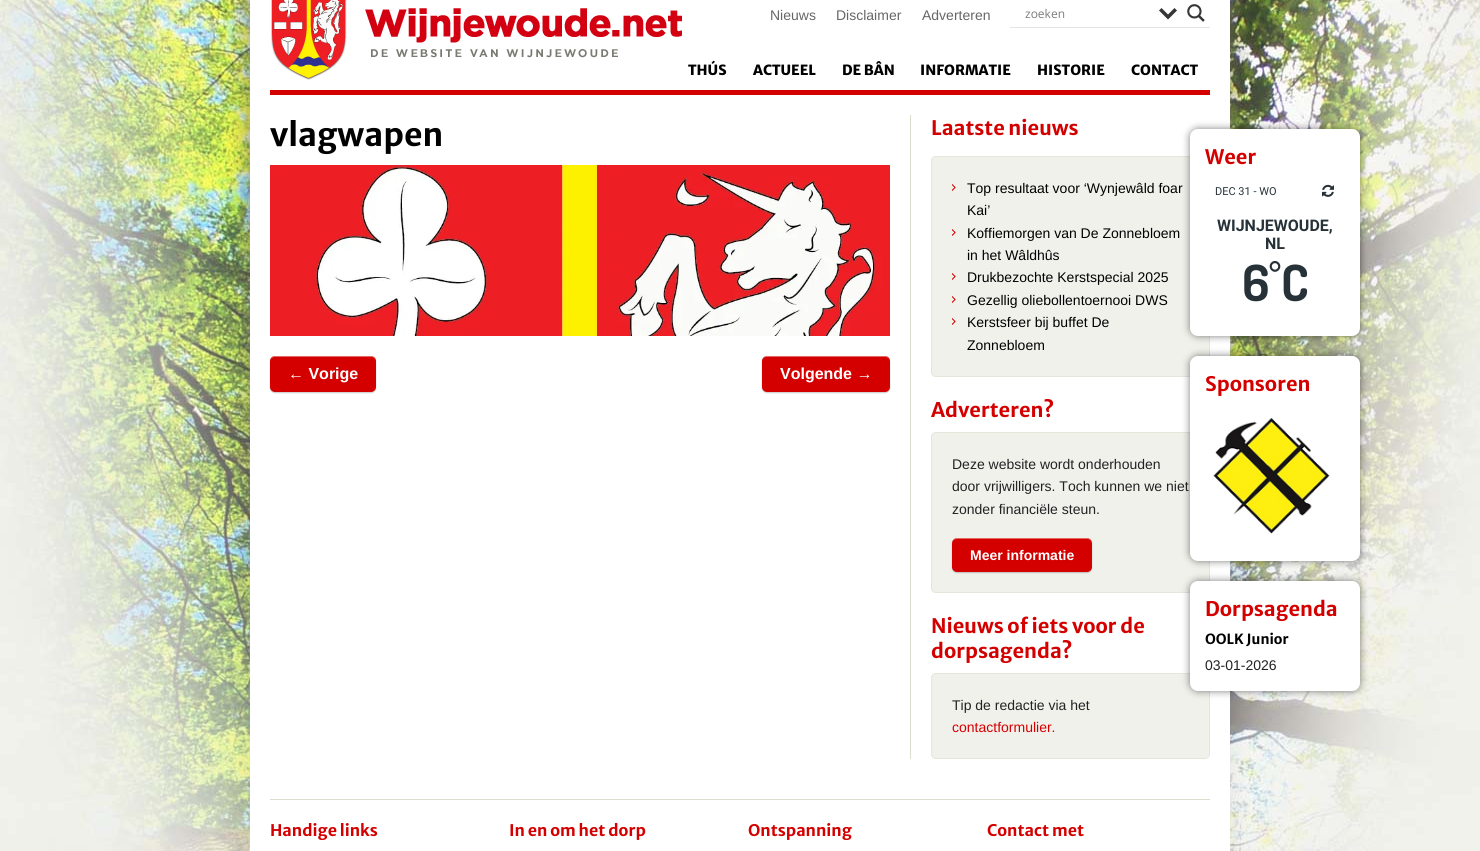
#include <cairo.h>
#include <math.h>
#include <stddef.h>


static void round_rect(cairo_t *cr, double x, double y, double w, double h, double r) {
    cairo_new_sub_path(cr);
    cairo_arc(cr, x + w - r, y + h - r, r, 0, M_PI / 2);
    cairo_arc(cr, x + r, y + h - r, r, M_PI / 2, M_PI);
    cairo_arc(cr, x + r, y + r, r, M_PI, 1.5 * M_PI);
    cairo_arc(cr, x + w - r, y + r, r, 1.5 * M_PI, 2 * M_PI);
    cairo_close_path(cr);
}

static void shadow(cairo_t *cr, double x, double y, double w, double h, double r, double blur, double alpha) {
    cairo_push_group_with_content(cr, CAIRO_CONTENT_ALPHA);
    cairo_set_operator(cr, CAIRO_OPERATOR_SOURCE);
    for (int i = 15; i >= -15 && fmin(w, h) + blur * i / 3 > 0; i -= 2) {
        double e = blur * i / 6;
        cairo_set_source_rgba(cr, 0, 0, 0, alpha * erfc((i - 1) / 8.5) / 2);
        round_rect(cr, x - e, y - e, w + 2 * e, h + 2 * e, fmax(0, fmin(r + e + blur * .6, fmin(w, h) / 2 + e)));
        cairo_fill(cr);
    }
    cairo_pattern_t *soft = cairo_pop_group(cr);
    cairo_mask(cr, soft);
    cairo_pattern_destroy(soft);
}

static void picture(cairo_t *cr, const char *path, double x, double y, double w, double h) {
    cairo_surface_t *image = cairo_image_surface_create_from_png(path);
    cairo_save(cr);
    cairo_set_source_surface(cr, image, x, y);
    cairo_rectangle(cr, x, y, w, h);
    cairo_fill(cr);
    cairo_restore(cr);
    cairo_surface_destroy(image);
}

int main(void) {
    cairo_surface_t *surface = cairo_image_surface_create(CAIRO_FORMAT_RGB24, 1480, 851);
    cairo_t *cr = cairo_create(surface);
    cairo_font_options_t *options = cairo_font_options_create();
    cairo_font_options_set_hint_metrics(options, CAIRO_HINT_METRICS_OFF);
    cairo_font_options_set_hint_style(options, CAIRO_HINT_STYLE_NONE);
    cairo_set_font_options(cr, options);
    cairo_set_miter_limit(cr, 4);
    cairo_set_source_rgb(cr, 1, 1, 1);
    cairo_paint(cr);
    picture(cr, "img1.png", 0, 0, 1480, 851);
    cairo_set_source_rgb(cr, 1, 1, 1);
    cairo_rectangle(cr, 250, 0, 980, 851);
    cairo_fill(cr);
    picture(cr, "img2.png", 271, 0, 411, 80);
    cairo_select_font_face(cr, "Liberation Sans", CAIRO_FONT_SLANT_NORMAL, CAIRO_FONT_WEIGHT_NORMAL);
    cairo_set_font_size(cr, 14);
    cairo_set_source_rgb(cr, 0.4, 0.4, 0.4);
    cairo_move_to(cr, 770, 20);
    cairo_show_text(cr, "Nieuws");
    cairo_move_to(cr, 836, 20);
    cairo_show_text(cr, "Disclaimer");
    cairo_move_to(cr, 922, 20);
    cairo_show_text(cr, "Adverteren");
    cairo_set_source_rgb(cr, 0.894, 0.894, 0.894);
    cairo_rectangle(cr, 1010, 27, 200, 1);
    cairo_fill(cr);
    cairo_select_font_face(cr, "Open Sans", CAIRO_FONT_SLANT_NORMAL, CAIRO_FONT_WEIGHT_NORMAL);
    cairo_set_font_size(cr, 12);
    cairo_set_source_rgb(cr, 0.49, 0.49, 0.49);
    cairo_move_to(cr, 1025, 18);
    cairo_show_text(cr, "zoeken");
    cairo_set_source_rgb(cr, 0.212, 0.212, 0.212);
    cairo_new_path(cr);
    cairo_move_to(cr, 1174.5, 8);
    cairo_line_to(cr, 1177, 10.5);
    cairo_line_to(cr, 1168, 19.5);
    cairo_line_to(cr, 1159, 10.5);
    cairo_line_to(cr, 1161.5, 8);
    cairo_line_to(cr, 1168, 14.5);
    cairo_close_path(cr);
    cairo_fill(cr);
    picture(cr, "img3.png", 1187, 4, 18, 18);
    cairo_set_source_rgb(cr, 0.831, 0, 0);
    cairo_rectangle(cr, 270, 90, 940, 5);
    cairo_fill(cr);
    cairo_select_font_face(cr, "Merriweather Sans ExtraBold", CAIRO_FONT_SLANT_NORMAL, CAIRO_FONT_WEIGHT_NORMAL);
    cairo_set_font_size(cr, 14);
    cairo_set_source_rgb(cr, 0, 0, 0);
    cairo_move_to(cr, 688, 75);
    cairo_show_text(cr, "THÚS");
    cairo_move_to(cr, 753, 75);
    cairo_show_text(cr, "ACTUEEL");
    cairo_move_to(cr, 842, 75);
    cairo_show_text(cr, "DE BÂN");
    cairo_move_to(cr, 920, 75);
    cairo_show_text(cr, "INFORMATIE");
    cairo_move_to(cr, 1037, 75);
    cairo_show_text(cr, "HISTORIE");
    cairo_move_to(cr, 1131, 75);
    cairo_show_text(cr, "CONTACT");
    cairo_select_font_face(cr, "Merriweather Sans", CAIRO_FONT_SLANT_NORMAL, CAIRO_FONT_WEIGHT_BOLD);
    cairo_set_font_size(cr, 32);
    cairo_move_to(cr, 270, 146);
    cairo_show_text(cr, "vlagwapen");
    picture(cr, "img4.png", 270, 165, 620, 171);
    cairo_set_source_rgb(cr, 0, 0, 0);
    shadow(cr, 270, 357, 106, 36, 5, 0.5, 0.2);
    cairo_set_source_rgb(cr, 0.831, 0, 0);
    round_rect(cr, 270, 356, 106, 36, 5);
    cairo_fill(cr);
    cairo_set_source_rgba(cr, 1, 1, 1, 0.4);
    cairo_new_path(cr);
    cairo_move_to(cr, 275, 357);
    cairo_line_to(cr, 371, 357);
    cairo_curve_to(cr, 374, 357, 376, 359, 376, 362);
    cairo_curve_to(cr, 376, 352, 360, 356, 355, 356);
    cairo_line_to(cr, 291, 356);
    cairo_curve_to(cr, 286, 356, 270, 352, 270, 362);
    cairo_curve_to(cr, 270, 359, 272, 357, 275, 357);
    cairo_close_path(cr);
    cairo_fill(cr);
    cairo_select_font_face(cr, "Liberation Sans", CAIRO_FONT_SLANT_NORMAL, CAIRO_FONT_WEIGHT_BOLD);
    cairo_set_font_size(cr, 16);
    cairo_set_source_rgb(cr, 1, 1, 1);
    cairo_move_to(cr, 288, 379);
    cairo_show_text(cr, "← Vorige");
    cairo_set_source_rgb(cr, 0, 0, 0);
    shadow(cr, 762, 357, 128, 36, 5, 0.5, 0.2);
    cairo_set_source_rgb(cr, 0.831, 0, 0);
    round_rect(cr, 762, 356, 128, 36, 5);
    cairo_fill(cr);
    cairo_set_source_rgba(cr, 1, 1, 1, 0.4);
    cairo_new_path(cr);
    cairo_move_to(cr, 767, 357);
    cairo_line_to(cr, 885, 357);
    cairo_curve_to(cr, 888, 357, 890, 359, 890, 362);
    cairo_curve_to(cr, 890, 351, 869, 356, 865, 356);
    cairo_line_to(cr, 787, 356);
    cairo_curve_to(cr, 783, 356, 762, 351, 762, 362);
    cairo_curve_to(cr, 762, 359, 764, 357, 767, 357);
    cairo_close_path(cr);
    cairo_fill(cr);
    cairo_set_source_rgb(cr, 1, 1, 1);
    cairo_move_to(cr, 780, 379);
    cairo_show_text(cr, "Volgende →");
    cairo_set_source_rgb(cr, 0.867, 0.867, 0.804);
    cairo_rectangle(cr, 910, 115, 1, 644);
    cairo_fill(cr);
    cairo_select_font_face(cr, "Merriweather Sans", CAIRO_FONT_SLANT_NORMAL, CAIRO_FONT_WEIGHT_BOLD);
    cairo_set_font_size(cr, 20);
    cairo_set_source_rgb(cr, 0.831, 0, 0);
    cairo_move_to(cr, 931, 135);
    cairo_show_text(cr, "Laatste nieuws");
    cairo_set_source_rgb(cr, 0.945, 0.945, 0.922);
    round_rect(cr, 931.5, 156.5, 278, 220, 4.5);
    cairo_fill_preserve(cr);
    cairo_set_source_rgb(cr, 0.898, 0.898, 0.851);
    cairo_set_line_width(cr, 1);
    cairo_stroke(cr);
    picture(cr, "img5.png", 952, 184, 4, 7);
    cairo_select_font_face(cr, "Liberation Sans", CAIRO_FONT_SLANT_NORMAL, CAIRO_FONT_WEIGHT_NORMAL);
    cairo_set_font_size(cr, 14);
    cairo_set_source_rgb(cr, 0, 0, 0);
    cairo_move_to(cr, 967, 193);
    cairo_show_text(cr, "Top resultaat voor ‘Wynjewâld foar");
    cairo_move_to(cr, 967, 215);
    cairo_show_text(cr, "Kai’");
    picture(cr, "img5.png", 952, 229, 4, 7);
    cairo_move_to(cr, 967, 238);
    cairo_show_text(cr, "Koffiemorgen van De Zonnebloem");
    cairo_move_to(cr, 967, 260);
    cairo_show_text(cr, "in het Wâldhûs");
    picture(cr, "img5.png", 952, 273, 4, 7);
    cairo_move_to(cr, 967, 282);
    cairo_show_text(cr, "Drukbezochte Kerstspecial 2025");
    picture(cr, "img5.png", 952, 296, 4, 7);
    cairo_move_to(cr, 967, 305);
    cairo_show_text(cr, "Gezellig oliebollentoernooi DWS");
    picture(cr, "img5.png", 952, 318, 4, 7);
    cairo_move_to(cr, 967, 327);
    cairo_show_text(cr, "Kerstsfeer bij buffet De");
    cairo_move_to(cr, 967, 350);
    cairo_show_text(cr, "Zonnebloem");
    cairo_select_font_face(cr, "Merriweather Sans", CAIRO_FONT_SLANT_NORMAL, CAIRO_FONT_WEIGHT_BOLD);
    cairo_set_font_size(cr, 20);
    cairo_set_source_rgb(cr, 0.831, 0, 0);
    cairo_move_to(cr, 931, 417);
    cairo_show_text(cr, "Adverteren?");
    cairo_set_source_rgb(cr, 0.945, 0.945, 0.922);
    round_rect(cr, 931.5, 432.5, 278, 160, 4.5);
    cairo_fill_preserve(cr);
    cairo_set_source_rgb(cr, 0.898, 0.898, 0.851);
    cairo_stroke(cr);
    cairo_select_font_face(cr, "Liberation Sans", CAIRO_FONT_SLANT_NORMAL, CAIRO_FONT_WEIGHT_NORMAL);
    cairo_set_font_size(cr, 14);
    cairo_set_source_rgb(cr, 0.133, 0.133, 0.133);
    cairo_move_to(cr, 952, 469);
    cairo_show_text(cr, "Deze website wordt onderhouden");
    cairo_move_to(cr, 952, 491);
    cairo_show_text(cr, "door vrijwilligers. Toch kunnen we niet");
    cairo_move_to(cr, 952, 514);
    cairo_show_text(cr, "zonder financiële steun.");
    cairo_set_source_rgb(cr, 0, 0, 0);
    shadow(cr, 952, 539, 140, 34, 5, 0.5, 0.2);
    cairo_set_source_rgb(cr, 0.831, 0, 0);
    round_rect(cr, 952, 538, 140, 34, 5);
    cairo_fill(cr);
    cairo_set_source_rgba(cr, 1, 1, 1, 0.4);
    cairo_new_path(cr);
    cairo_move_to(cr, 957, 539);
    cairo_line_to(cr, 1087, 539);
    cairo_curve_to(cr, 1090, 539, 1092, 541, 1092, 544);
    cairo_line_to(cr, 1092, 543);
    cairo_curve_to(cr, 1092, 540, 1090, 538, 1087, 538);
    cairo_line_to(cr, 957, 538);
    cairo_curve_to(cr, 954, 538, 952, 540, 952, 543);
    cairo_line_to(cr, 952, 544);
    cairo_curve_to(cr, 952, 541, 954, 539, 957, 539);
    cairo_close_path(cr);
    cairo_fill(cr);
    cairo_select_font_face(cr, "Liberation Sans", CAIRO_FONT_SLANT_NORMAL, CAIRO_FONT_WEIGHT_BOLD);
    cairo_set_source_rgb(cr, 1, 1, 1);
    cairo_move_to(cr, 970, 560);
    cairo_show_text(cr, "Meer informatie");
    cairo_select_font_face(cr, "Merriweather Sans", CAIRO_FONT_SLANT_NORMAL, CAIRO_FONT_WEIGHT_BOLD);
    cairo_set_font_size(cr, 20);
    cairo_set_source_rgb(cr, 0.831, 0, 0);
    cairo_move_to(cr, 931, 633);
    cairo_show_text(cr, "Nieuws of iets voor de");
    cairo_move_to(cr, 931, 658);
    cairo_show_text(cr, "dorpsagenda?");
    cairo_set_source_rgb(cr, 0.945, 0.945, 0.922);
    round_rect(cr, 931.5, 673.5, 278, 85, 4.5);
    cairo_fill_preserve(cr);
    cairo_set_source_rgb(cr, 0.898, 0.898, 0.851);
    cairo_stroke(cr);
    cairo_select_font_face(cr, "Liberation Sans", CAIRO_FONT_SLANT_NORMAL, CAIRO_FONT_WEIGHT_NORMAL);
    cairo_set_font_size(cr, 14);
    cairo_set_source_rgb(cr, 0.133, 0.133, 0.133);
    cairo_move_to(cr, 952, 710);
    cairo_show_text(cr, "Tip de redactie via het");
    cairo_set_source_rgb(cr, 0.831, 0, 0);
    cairo_move_to(cr, 952, 732);
    cairo_show_text(cr, "contactformulier.");
    cairo_set_source_rgb(cr, 0.867, 0.867, 0.804);
    cairo_rectangle(cr, 270, 799, 940, 1);
    cairo_fill(cr);
    cairo_select_font_face(cr, "Merriweather Sans", CAIRO_FONT_SLANT_NORMAL, CAIRO_FONT_WEIGHT_BOLD);
    cairo_set_font_size(cr, 16);
    cairo_set_source_rgb(cr, 0.831, 0, 0);
    cairo_move_to(cr, 270, 836);
    cairo_show_text(cr, "Handige links");
    cairo_move_to(cr, 509, 836);
    cairo_show_text(cr, "In en om het dorp");
    cairo_move_to(cr, 748, 836);
    cairo_show_text(cr, "Ontspanning");
    cairo_move_to(cr, 987, 836);
    cairo_show_text(cr, "Contact met");
    cairo_set_source_rgb(cr, 0, 0, 0);
    shadow(cr, 1190, 129, 170, 207, 8, 4, 0.5);
    cairo_set_source_rgb(cr, 1, 1, 1);
    round_rect(cr, 1190, 129, 170, 207, 8);
    cairo_fill(cr);
    cairo_set_font_size(cr, 20);
    cairo_set_source_rgb(cr, 0.831, 0, 0);
    cairo_move_to(cr, 1205, 164);
    cairo_show_text(cr, "Weer");
    cairo_select_font_face(cr, "Roboto", CAIRO_FONT_SLANT_NORMAL, CAIRO_FONT_WEIGHT_NORMAL);
    cairo_set_font_size(cr, 11);
    cairo_set_source_rgb(cr, 0.149, 0.196, 0.22);
    cairo_move_to(cr, 1215, 195);
    cairo_show_text(cr, "DEC 31 - WO");
    picture(cr, "img6.png", 1322, 184, 12, 13);
    cairo_select_font_face(cr, "Roboto", CAIRO_FONT_SLANT_NORMAL, CAIRO_FONT_WEIGHT_BOLD);
    cairo_set_font_size(cr, 16);
    cairo_move_to(cr, 1217, 231);
    cairo_show_text(cr, "WIJNJEWOUDE,");
    cairo_move_to(cr, 1265, 249);
    cairo_show_text(cr, "NL");
    cairo_select_font_face(cr, "Dosis", CAIRO_FONT_SLANT_NORMAL, CAIRO_FONT_WEIGHT_BOLD);
    cairo_set_font_size(cr, 50);
    cairo_move_to(cr, 1242, 301);
    cairo_show_text(cr, "6");
    cairo_set_font_size(cr, 30);
    cairo_move_to(cr, 1269, 284);
    cairo_show_text(cr, "°");
    cairo_set_font_size(cr, 50);
    cairo_move_to(cr, 1281, 301);
    cairo_show_text(cr, "C");
    cairo_set_source_rgb(cr, 0, 0, 0);
    shadow(cr, 1190, 356, 170, 205, 8, 4, 0.5);
    cairo_set_source_rgb(cr, 1, 1, 1);
    round_rect(cr, 1190, 356, 170, 205, 8);
    cairo_fill(cr);
    cairo_select_font_face(cr, "Merriweather Sans", CAIRO_FONT_SLANT_NORMAL, CAIRO_FONT_WEIGHT_BOLD);
    cairo_set_font_size(cr, 20);
    cairo_set_source_rgb(cr, 0.831, 0, 0);
    cairo_move_to(cr, 1205, 391);
    cairo_show_text(cr, "Sponsoren");
    picture(cr, "img7.png", 1213, 418, 117, 116);
    cairo_set_source_rgb(cr, 0, 0, 0);
    shadow(cr, 1190, 581, 170, 110, 8, 4, 0.5);
    cairo_set_source_rgb(cr, 1, 1, 1);
    round_rect(cr, 1190, 581, 170, 110, 8);
    cairo_fill(cr);
    cairo_set_source_rgb(cr, 0.831, 0, 0);
    cairo_move_to(cr, 1205, 616);
    cairo_show_text(cr, "Dorpsagenda");
    cairo_set_font_size(cr, 14);
    cairo_set_source_rgb(cr, 0, 0, 0);
    cairo_move_to(cr, 1205, 644);
    cairo_show_text(cr, "OOLK Junior");
    cairo_select_font_face(cr, "Liberation Sans", CAIRO_FONT_SLANT_NORMAL, CAIRO_FONT_WEIGHT_NORMAL);
    cairo_set_source_rgb(cr, 0.133, 0.133, 0.133);
    cairo_move_to(cr, 1205, 670);
    cairo_show_text(cr, "03-01-2026");
    cairo_surface_write_to_png(surface, "page.png");
    cairo_font_options_destroy(options);
    cairo_destroy(cr);
    cairo_surface_destroy(surface);
    return 0;
}
